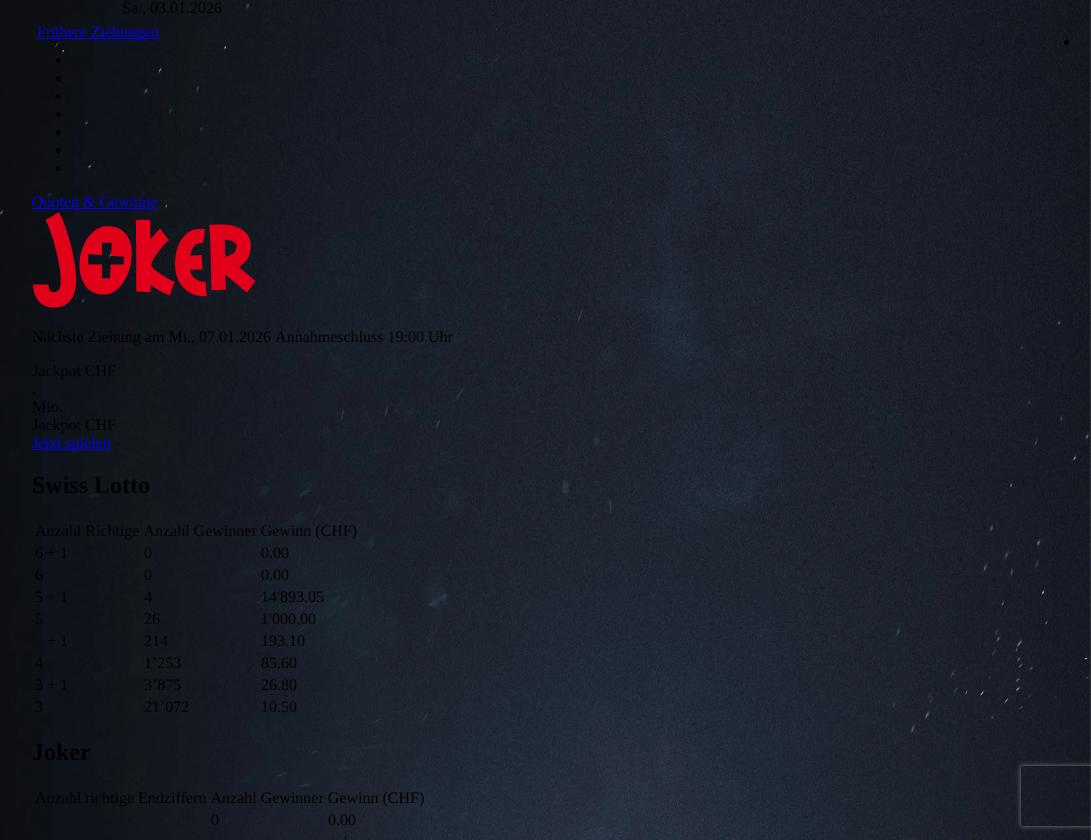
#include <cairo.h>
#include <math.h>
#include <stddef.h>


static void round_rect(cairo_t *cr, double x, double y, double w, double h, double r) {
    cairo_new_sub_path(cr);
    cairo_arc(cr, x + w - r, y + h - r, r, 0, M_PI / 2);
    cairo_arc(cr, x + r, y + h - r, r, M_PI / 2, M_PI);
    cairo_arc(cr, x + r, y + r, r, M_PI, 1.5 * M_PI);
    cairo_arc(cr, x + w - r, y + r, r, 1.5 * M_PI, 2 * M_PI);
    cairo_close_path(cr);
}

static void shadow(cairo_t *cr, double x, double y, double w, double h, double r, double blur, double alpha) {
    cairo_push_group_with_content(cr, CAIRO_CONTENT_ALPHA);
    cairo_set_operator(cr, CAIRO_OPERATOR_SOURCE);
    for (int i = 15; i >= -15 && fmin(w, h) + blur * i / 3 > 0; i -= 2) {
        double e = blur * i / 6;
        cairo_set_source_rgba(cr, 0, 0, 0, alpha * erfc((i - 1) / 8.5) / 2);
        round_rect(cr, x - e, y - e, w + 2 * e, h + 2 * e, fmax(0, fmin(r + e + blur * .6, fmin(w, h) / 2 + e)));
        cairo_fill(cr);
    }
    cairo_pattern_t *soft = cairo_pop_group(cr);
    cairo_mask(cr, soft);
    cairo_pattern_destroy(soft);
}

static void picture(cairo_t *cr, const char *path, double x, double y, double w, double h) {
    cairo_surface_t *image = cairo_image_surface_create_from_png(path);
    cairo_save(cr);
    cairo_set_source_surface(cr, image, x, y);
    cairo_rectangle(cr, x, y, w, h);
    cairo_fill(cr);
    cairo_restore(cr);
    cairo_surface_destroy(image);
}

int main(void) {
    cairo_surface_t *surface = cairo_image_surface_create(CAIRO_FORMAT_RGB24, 1091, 840);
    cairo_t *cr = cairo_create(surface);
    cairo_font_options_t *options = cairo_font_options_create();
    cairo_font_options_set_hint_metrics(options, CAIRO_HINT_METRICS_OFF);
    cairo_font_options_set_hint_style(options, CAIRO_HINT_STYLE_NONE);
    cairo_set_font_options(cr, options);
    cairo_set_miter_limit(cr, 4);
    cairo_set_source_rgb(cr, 1, 1, 1);
    cairo_paint(cr);
    picture(cr, "img1.png", 0, 0, 1091, 840);
    cairo_select_font_face(cr, "Liberation Serif", CAIRO_FONT_SLANT_NORMAL, CAIRO_FONT_WEIGHT_NORMAL);
    cairo_set_font_size(cr, 16);
    cairo_set_source_rgb(cr, 0, 0, 0);
    cairo_move_to(cr, 122, 13);
    cairo_show_text(cr, "Sa., 03.01.2026");
    cairo_set_source_rgb(cr, 0, 0, 0.933);
    cairo_rectangle(cr, 37, 38, 122, 1);
    cairo_fill(cr);
    cairo_move_to(cr, 37, 37);
    cairo_show_text(cr, "Frühere Ziehungen");
    cairo_set_source_rgb(cr, 0, 0, 0);
    cairo_new_path(cr);
    cairo_arc(cr, 1066.5, 42.5, 2.5, 0, 2 * M_PI);
    cairo_fill(cr);
    cairo_arc(cr, 58.5, 60.5, 2.5, 0, 2 * M_PI);
    cairo_fill(cr);
    cairo_arc(cr, 58.5, 78.5, 2.5, 0, 2 * M_PI);
    cairo_fill(cr);
    cairo_arc(cr, 58.5, 96.5, 2.5, 0, 2 * M_PI);
    cairo_fill(cr);
    cairo_arc(cr, 58.5, 114.5, 2.5, 0, 2 * M_PI);
    cairo_fill(cr);
    cairo_arc(cr, 58.5, 132.5, 2.5, 0, 2 * M_PI);
    cairo_fill(cr);
    cairo_arc(cr, 58.5, 150.5, 2.5, 0, 2 * M_PI);
    cairo_fill(cr);
    cairo_arc(cr, 58.5, 168.5, 2.5, 0, 2 * M_PI);
    cairo_fill(cr);
    cairo_set_source_rgb(cr, 0, 0, 0.933);
    cairo_rectangle(cr, 32, 208, 125, 1);
    cairo_fill(cr);
    cairo_move_to(cr, 32, 207);
    cairo_show_text(cr, "Quoten & Gewinne");
    picture(cr, "img2.png", 33, 212, 223, 96);
    cairo_set_source_rgb(cr, 0, 0, 0);
    cairo_move_to(cr, 32, 342);
    cairo_show_text(cr, "Nächste Ziehung am Mi., 07.01.2026 Annahmeschluss 19:00 Uhr");
    cairo_move_to(cr, 32, 376);
    cairo_show_text(cr, "Jackpot CHF");
    cairo_move_to(cr, 32, 394);
    cairo_show_text(cr, ".");
    cairo_move_to(cr, 32, 412);
    cairo_show_text(cr, "Mio.");
    cairo_move_to(cr, 32, 430);
    cairo_show_text(cr, "Jackpot CHF");
    cairo_set_source_rgb(cr, 0, 0, 0.933);
    cairo_rectangle(cr, 32, 449, 79, 1);
    cairo_fill(cr);
    cairo_move_to(cr, 32, 448);
    cairo_show_text(cr, "Jetzt spielen");
    cairo_select_font_face(cr, "Liberation Serif", CAIRO_FONT_SLANT_NORMAL, CAIRO_FONT_WEIGHT_BOLD);
    cairo_set_font_size(cr, 24);
    cairo_set_source_rgb(cr, 0, 0, 0);
    cairo_move_to(cr, 32, 493);
    cairo_show_text(cr, "Swiss Lotto");
    cairo_select_font_face(cr, "Liberation Serif", CAIRO_FONT_SLANT_NORMAL, CAIRO_FONT_WEIGHT_NORMAL);
    cairo_set_font_size(cr, 16);
    cairo_move_to(cr, 35, 536);
    cairo_show_text(cr, "Anzahl Richtige Anzahl Gewinner Gewinn (CHF)");
    cairo_move_to(cr, 35, 558);
    cairo_show_text(cr, "6 + 1");
    cairo_move_to(cr, 144, 558);
    cairo_show_text(cr, "0");
    cairo_move_to(cr, 261, 558);
    cairo_show_text(cr, "0.00");
    cairo_move_to(cr, 35, 580);
    cairo_show_text(cr, "6");
    cairo_move_to(cr, 144, 580);
    cairo_show_text(cr, "0");
    cairo_move_to(cr, 261, 580);
    cairo_show_text(cr, "0.00");
    cairo_move_to(cr, 35, 602);
    cairo_show_text(cr, "5 + 1");
    cairo_move_to(cr, 144, 602);
    cairo_show_text(cr, "4");
    cairo_move_to(cr, 261, 602);
    cairo_show_text(cr, "14'893.05");
    cairo_move_to(cr, 35, 624);
    cairo_show_text(cr, "5");
    cairo_move_to(cr, 144, 624);
    cairo_show_text(cr, "26");
    cairo_move_to(cr, 261, 624);
    cairo_show_text(cr, "1'000.00");
    cairo_move_to(cr, 47, 646);
    cairo_show_text(cr, "+ 1");
    cairo_move_to(cr, 144, 646);
    cairo_show_text(cr, "214");
    cairo_move_to(cr, 261, 646);
    cairo_show_text(cr, "193.10");
    cairo_move_to(cr, 35, 668);
    cairo_show_text(cr, "4");
    cairo_move_to(cr, 144, 668);
    cairo_show_text(cr, "1’253");
    cairo_move_to(cr, 261, 668);
    cairo_show_text(cr, "85.60");
    cairo_move_to(cr, 35, 690);
    cairo_show_text(cr, "3 + 1");
    cairo_move_to(cr, 144, 690);
    cairo_show_text(cr, "3’875");
    cairo_move_to(cr, 261, 690);
    cairo_show_text(cr, "26.80");
    cairo_move_to(cr, 35, 712);
    cairo_show_text(cr, "3");
    cairo_move_to(cr, 144, 712);
    cairo_show_text(cr, "21’072");
    cairo_move_to(cr, 261, 712);
    cairo_show_text(cr, "10.50");
    cairo_select_font_face(cr, "Liberation Serif", CAIRO_FONT_SLANT_NORMAL, CAIRO_FONT_WEIGHT_BOLD);
    cairo_set_font_size(cr, 24);
    cairo_move_to(cr, 32, 760);
    cairo_show_text(cr, "Joker");
    cairo_select_font_face(cr, "Liberation Serif", CAIRO_FONT_SLANT_NORMAL, CAIRO_FONT_WEIGHT_NORMAL);
    cairo_set_font_size(cr, 16);
    cairo_move_to(cr, 35, 803);
    cairo_show_text(cr, "Anzahl richtige Endziffern Anzahl Gewinner Gewinn (CHF)");
    cairo_move_to(cr, 211, 825);
    cairo_show_text(cr, "0");
    cairo_move_to(cr, 328, 825);
    cairo_show_text(cr, "0.00");
    cairo_move_to(cr, 344, 847);
    cairo_show_text(cr, "'");
    cairo_save(cr);
    cairo_set_fill_rule(cr, CAIRO_FILL_RULE_EVEN_ODD);
    cairo_new_path(cr);
    cairo_move_to(cr, 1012, 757);
    cairo_line_to(cr, 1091, 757);
    cairo_line_to(cr, 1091, 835);
    cairo_line_to(cr, 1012, 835);
    cairo_close_path(cr);
    cairo_move_to(cr, 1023, 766);
    cairo_line_to(cr, 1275, 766);
    cairo_curve_to(cr, 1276, 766, 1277, 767, 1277, 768);
    cairo_line_to(cr, 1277, 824);
    cairo_curve_to(cr, 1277, 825, 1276, 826, 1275, 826);
    cairo_line_to(cr, 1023, 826);
    cairo_curve_to(cr, 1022, 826, 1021, 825, 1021, 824);
    cairo_line_to(cr, 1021, 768);
    cairo_curve_to(cr, 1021, 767, 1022, 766, 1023, 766);
    cairo_close_path(cr);
    cairo_clip(cr);
    cairo_set_source_rgb(cr, 0.502, 0.502, 0.502);
    shadow(cr, 1021, 766, 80, 60, 2, 2.5, 1);
    cairo_restore(cr);
    cairo_surface_write_to_png(surface, "page.png");
    cairo_font_options_destroy(options);
    cairo_destroy(cr);
    cairo_surface_destroy(surface);
    return 0;
}
